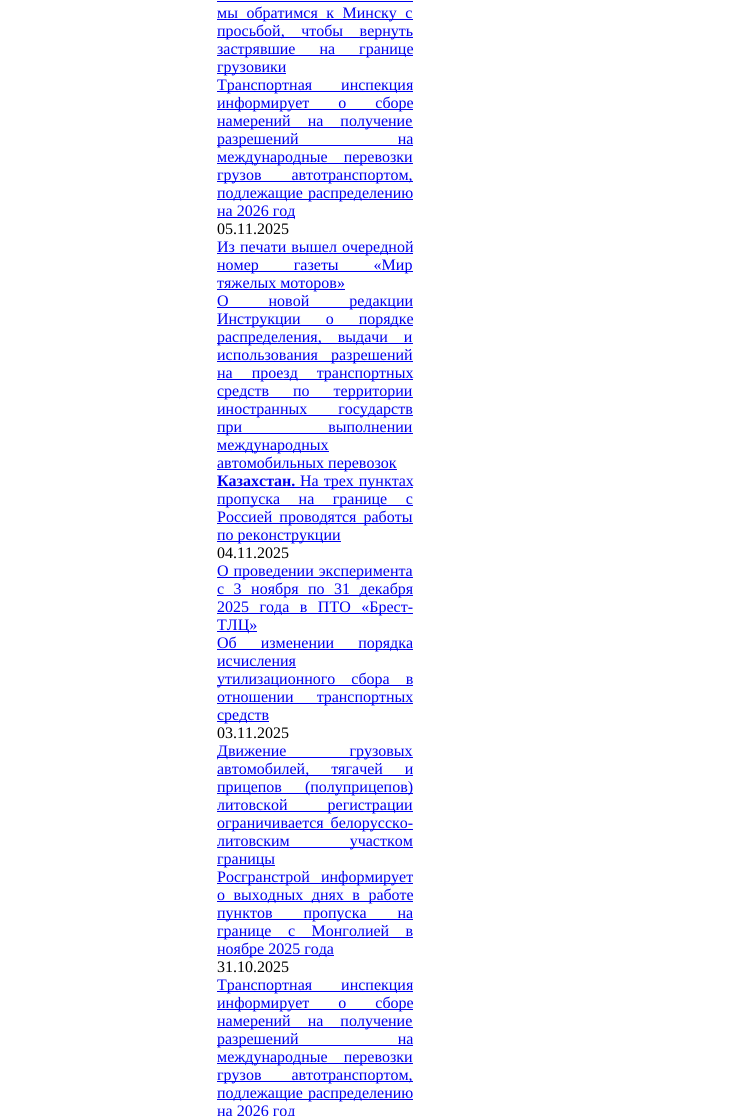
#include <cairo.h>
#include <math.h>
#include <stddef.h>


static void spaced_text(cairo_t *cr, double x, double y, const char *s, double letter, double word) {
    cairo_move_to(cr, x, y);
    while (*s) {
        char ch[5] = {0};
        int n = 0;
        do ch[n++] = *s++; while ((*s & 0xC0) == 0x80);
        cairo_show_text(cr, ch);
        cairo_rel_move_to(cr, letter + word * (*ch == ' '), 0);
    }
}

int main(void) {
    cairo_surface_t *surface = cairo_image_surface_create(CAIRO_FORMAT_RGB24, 743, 1116);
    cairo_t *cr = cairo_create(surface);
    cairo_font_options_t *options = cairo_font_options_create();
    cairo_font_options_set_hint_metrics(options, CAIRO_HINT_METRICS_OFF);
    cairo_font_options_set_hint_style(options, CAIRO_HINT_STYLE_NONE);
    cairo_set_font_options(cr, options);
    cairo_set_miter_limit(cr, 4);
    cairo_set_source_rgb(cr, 1, 1, 1);
    cairo_paint(cr);
    cairo_set_source_rgb(cr, 0, 0, 0.933);
    cairo_rectangle(cr, 217, 19, 196, 1);
    cairo_fill(cr);
    cairo_select_font_face(cr, "Liberation Serif", CAIRO_FONT_SLANT_NORMAL, CAIRO_FONT_WEIGHT_NORMAL);
    cairo_set_font_size(cr, 16);
    spaced_text(cr, 217, 18, "мы обратимся к Минску с", 0, 4.5);
    cairo_rectangle(cr, 217, 1, 196, 1);
    cairo_fill(cr);
    cairo_rectangle(cr, 217, 37, 196, 1);
    cairo_fill(cr);
    spaced_text(cr, 217, 36, "просьбой, чтобы вернуть", 0, 12.5);
    cairo_rectangle(cr, 217, 55, 196, 1);
    cairo_fill(cr);
    spaced_text(cr, 217, 54, "застрявшие на границе", 0, 20);
    cairo_rectangle(cr, 217, 73, 69, 1);
    cairo_fill(cr);
    cairo_move_to(cr, 217, 72);
    cairo_show_text(cr, "грузовики");
    cairo_rectangle(cr, 217, 91, 196, 1);
    cairo_fill(cr);
    spaced_text(cr, 217, 90, "Транспортная инспекция", 0, 25);
    cairo_rectangle(cr, 217, 109, 196, 1);
    cairo_fill(cr);
    spaced_text(cr, 217, 108, "информирует о сборе", 0, 25);
    cairo_rectangle(cr, 217, 127, 196, 1);
    cairo_fill(cr);
    spaced_text(cr, 217, 126, "намерений на получение", 0, 13);
    cairo_rectangle(cr, 217, 145, 196, 1);
    cairo_fill(cr);
    spaced_text(cr, 217, 144, "разрешений на", 0, 95);
    cairo_rectangle(cr, 217, 163, 196, 1);
    cairo_fill(cr);
    spaced_text(cr, 217, 162, "международные перевозки", 0, 12);
    cairo_rectangle(cr, 217, 181, 196, 1);
    cairo_fill(cr);
    spaced_text(cr, 217, 180, "грузов автотранспортом,", 0, 26);
    cairo_rectangle(cr, 217, 199, 196, 1);
    cairo_fill(cr);
    spaced_text(cr, 217, 198, "подлежащие распределению", 0, 1);
    cairo_rectangle(cr, 217, 217, 78, 1);
    cairo_fill(cr);
    cairo_move_to(cr, 217, 216);
    cairo_show_text(cr, "на 2026 год");
    cairo_set_source_rgb(cr, 0, 0, 0);
    cairo_move_to(cr, 217, 234);
    cairo_show_text(cr, "05.11.2025");
    cairo_set_source_rgb(cr, 0, 0, 0.933);
    cairo_rectangle(cr, 217, 253, 196, 1);
    cairo_fill(cr);
    spaced_text(cr, 217, 252, "Из печати вышел очередной", 0, 1);
    cairo_rectangle(cr, 217, 271, 196, 1);
    cairo_fill(cr);
    spaced_text(cr, 217, 270, "номер газеты «Мир", 0, 31);
    cairo_rectangle(cr, 217, 289, 128, 1);
    cairo_fill(cr);
    cairo_move_to(cr, 217, 288);
    cairo_show_text(cr, "тяжелых моторов»");
    cairo_rectangle(cr, 217, 307, 196, 1);
    cairo_fill(cr);
    spaced_text(cr, 217, 306, "О новой редакции", 0, 36);
    cairo_rectangle(cr, 217, 325, 196, 1);
    cairo_fill(cr);
    spaced_text(cr, 217, 324, "Инструкции о порядке", 0, 21);
    cairo_rectangle(cr, 217, 343, 196, 1);
    cairo_fill(cr);
    spaced_text(cr, 217, 342, "распределения, выдачи и", 0, 12);
    cairo_rectangle(cr, 217, 361, 196, 1);
    cairo_fill(cr);
    spaced_text(cr, 217, 360, "использования разрешений", 0, 9);
    cairo_rectangle(cr, 217, 379, 196, 1);
    cairo_fill(cr);
    spaced_text(cr, 217, 378, "на проезд транспортных", 0, 15);
    cairo_rectangle(cr, 217, 397, 196, 1);
    cairo_fill(cr);
    spaced_text(cr, 217, 396, "средств по территории", 0, 20);
    cairo_rectangle(cr, 217, 415, 196, 1);
    cairo_fill(cr);
    spaced_text(cr, 217, 414, "иностранных государств", 0, 27);
    cairo_rectangle(cr, 217, 433, 196, 1);
    cairo_fill(cr);
    spaced_text(cr, 217, 432, "при выполнении", 0, 82);
    cairo_rectangle(cr, 217, 451, 112, 1);
    cairo_fill(cr);
    cairo_move_to(cr, 217, 450);
    cairo_show_text(cr, "международных");
    cairo_rectangle(cr, 217, 469, 180, 1);
    cairo_fill(cr);
    cairo_move_to(cr, 217, 468);
    cairo_show_text(cr, "автомобильных перевозок");
    cairo_select_font_face(cr, "Liberation Serif", CAIRO_FONT_SLANT_NORMAL, CAIRO_FONT_WEIGHT_BOLD);
    cairo_move_to(cr, 217, 486);
    cairo_show_text(cr, "Казахстан.");
    cairo_rectangle(cr, 217, 487, 196, 1);
    cairo_fill(cr);
    cairo_select_font_face(cr, "Liberation Serif", CAIRO_FONT_SLANT_NORMAL, CAIRO_FONT_WEIGHT_NORMAL);
    spaced_text(cr, 300, 486, "На трех пунктах", 0, 1);
    cairo_rectangle(cr, 217, 505, 196, 1);
    cairo_fill(cr);
    spaced_text(cr, 217, 504, "пропуска на границе с", 0, 14.5);
    cairo_rectangle(cr, 217, 523, 196, 1);
    cairo_fill(cr);
    spaced_text(cr, 217, 522, "Россией проводятся работы", 0, 3);
    cairo_rectangle(cr, 217, 541, 124, 1);
    cairo_fill(cr);
    cairo_move_to(cr, 217, 540);
    cairo_show_text(cr, "по реконструкции");
    cairo_set_source_rgb(cr, 0, 0, 0);
    cairo_move_to(cr, 217, 558);
    cairo_show_text(cr, "04.11.2025");
    cairo_set_source_rgb(cr, 0, 0, 0.933);
    cairo_rectangle(cr, 217, 577, 196, 1);
    cairo_fill(cr);
    spaced_text(cr, 217, 576, "О проведении эксперимента", 0, 1);
    cairo_rectangle(cr, 217, 595, 196, 1);
    cairo_fill(cr);
    spaced_text(cr, 217, 594, "с 3 ноября по 31 декабря", 0, 5.5);
    cairo_rectangle(cr, 217, 613, 196, 1);
    cairo_fill(cr);
    spaced_text(cr, 217, 612, "2025 года в ПТО «Брест-", 0, 6.5);
    cairo_rectangle(cr, 217, 631, 40, 1);
    cairo_fill(cr);
    cairo_move_to(cr, 217, 630);
    cairo_show_text(cr, "ТЛЦ»");
    cairo_rectangle(cr, 217, 649, 196, 1);
    cairo_fill(cr);
    spaced_text(cr, 217, 648, "Об изменении порядка", 0, 20);
    cairo_move_to(cr, 217, 666);
    cairo_show_text(cr, "исчисления");
    cairo_rectangle(cr, 217, 667, 79, 1);
    cairo_fill(cr);
    cairo_rectangle(cr, 217, 685, 196, 1);
    cairo_fill(cr);
    spaced_text(cr, 217, 684, "утилизационного сбора в", 0, 12);
    cairo_rectangle(cr, 217, 703, 196, 1);
    cairo_fill(cr);
    spaced_text(cr, 217, 702, "отношении транспортных", 0, 19);
    cairo_rectangle(cr, 217, 721, 52, 1);
    cairo_fill(cr);
    cairo_move_to(cr, 217, 720);
    cairo_show_text(cr, "средств");
    cairo_set_source_rgb(cr, 0, 0, 0);
    cairo_move_to(cr, 217, 738);
    cairo_show_text(cr, "03.11.2025");
    cairo_set_source_rgb(cr, 0, 0, 0.933);
    cairo_rectangle(cr, 217, 757, 196, 1);
    cairo_fill(cr);
    spaced_text(cr, 217, 756, "Движение грузовых", 0, 59);
    cairo_rectangle(cr, 217, 775, 196, 1);
    cairo_fill(cr);
    spaced_text(cr, 217, 774, "автомобилей, тягачей и", 0, 18);
    cairo_rectangle(cr, 217, 793, 196, 1);
    cairo_fill(cr);
    spaced_text(cr, 217, 792, "прицепов (полуприцепов)", 0, 19);
    cairo_rectangle(cr, 217, 811, 196, 1);
    cairo_fill(cr);
    spaced_text(cr, 217, 810, "литовской регистрации", 0, 36);
    cairo_rectangle(cr, 217, 829, 196, 1);
    cairo_fill(cr);
    spaced_text(cr, 217, 828, "ограничивается белорусско-", 0, 3);
    cairo_rectangle(cr, 217, 847, 196, 1);
    cairo_fill(cr);
    spaced_text(cr, 217, 846, "литовским участком", 0, 56);
    cairo_rectangle(cr, 217, 865, 58, 1);
    cairo_fill(cr);
    cairo_move_to(cr, 217, 864);
    cairo_show_text(cr, "границы");
    cairo_rectangle(cr, 217, 883, 196, 1);
    cairo_fill(cr);
    spaced_text(cr, 217, 882, "Росгранстрой информирует", 0, 7);
    cairo_rectangle(cr, 217, 901, 196, 1);
    cairo_fill(cr);
    spaced_text(cr, 217, 900, "о выходных днях в работе", 0, 4.5);
    cairo_rectangle(cr, 217, 919, 196, 1);
    cairo_fill(cr);
    spaced_text(cr, 217, 918, "пунктов пропуска на", 0, 27);
    cairo_rectangle(cr, 217, 937, 196, 1);
    cairo_fill(cr);
    spaced_text(cr, 217, 936, "границе с Монголией в", 0, 12.5);
    cairo_rectangle(cr, 217, 955, 117, 1);
    cairo_fill(cr);
    cairo_move_to(cr, 217, 954);
    cairo_show_text(cr, "ноябре 2025 года");
    cairo_set_source_rgb(cr, 0, 0, 0);
    cairo_move_to(cr, 217, 972);
    cairo_show_text(cr, "31.10.2025");
    cairo_set_source_rgb(cr, 0, 0, 0.933);
    cairo_rectangle(cr, 217, 991, 196, 1);
    cairo_fill(cr);
    spaced_text(cr, 217, 990, "Транспортная инспекция", 0, 25);
    cairo_rectangle(cr, 217, 1009, 196, 1);
    cairo_fill(cr);
    spaced_text(cr, 217, 1008, "информирует о сборе", 0, 25);
    cairo_rectangle(cr, 217, 1027, 196, 1);
    cairo_fill(cr);
    spaced_text(cr, 217, 1026, "намерений на получение", 0, 13);
    cairo_rectangle(cr, 217, 1045, 196, 1);
    cairo_fill(cr);
    spaced_text(cr, 217, 1044, "разрешений на", 0, 95);
    cairo_rectangle(cr, 217, 1063, 196, 1);
    cairo_fill(cr);
    spaced_text(cr, 217, 1062, "международные перевозки", 0, 12);
    cairo_rectangle(cr, 217, 1081, 196, 1);
    cairo_fill(cr);
    spaced_text(cr, 217, 1080, "грузов автотранспортом,", 0, 26);
    cairo_rectangle(cr, 217, 1099, 196, 1);
    cairo_fill(cr);
    spaced_text(cr, 217, 1098, "подлежащие распределению", 0, 1);
    cairo_move_to(cr, 217, 1116);
    cairo_show_text(cr, "на 2026 год");
    cairo_surface_write_to_png(surface, "page.png");
    cairo_font_options_destroy(options);
    cairo_destroy(cr);
    cairo_surface_destroy(surface);
    return 0;
}
